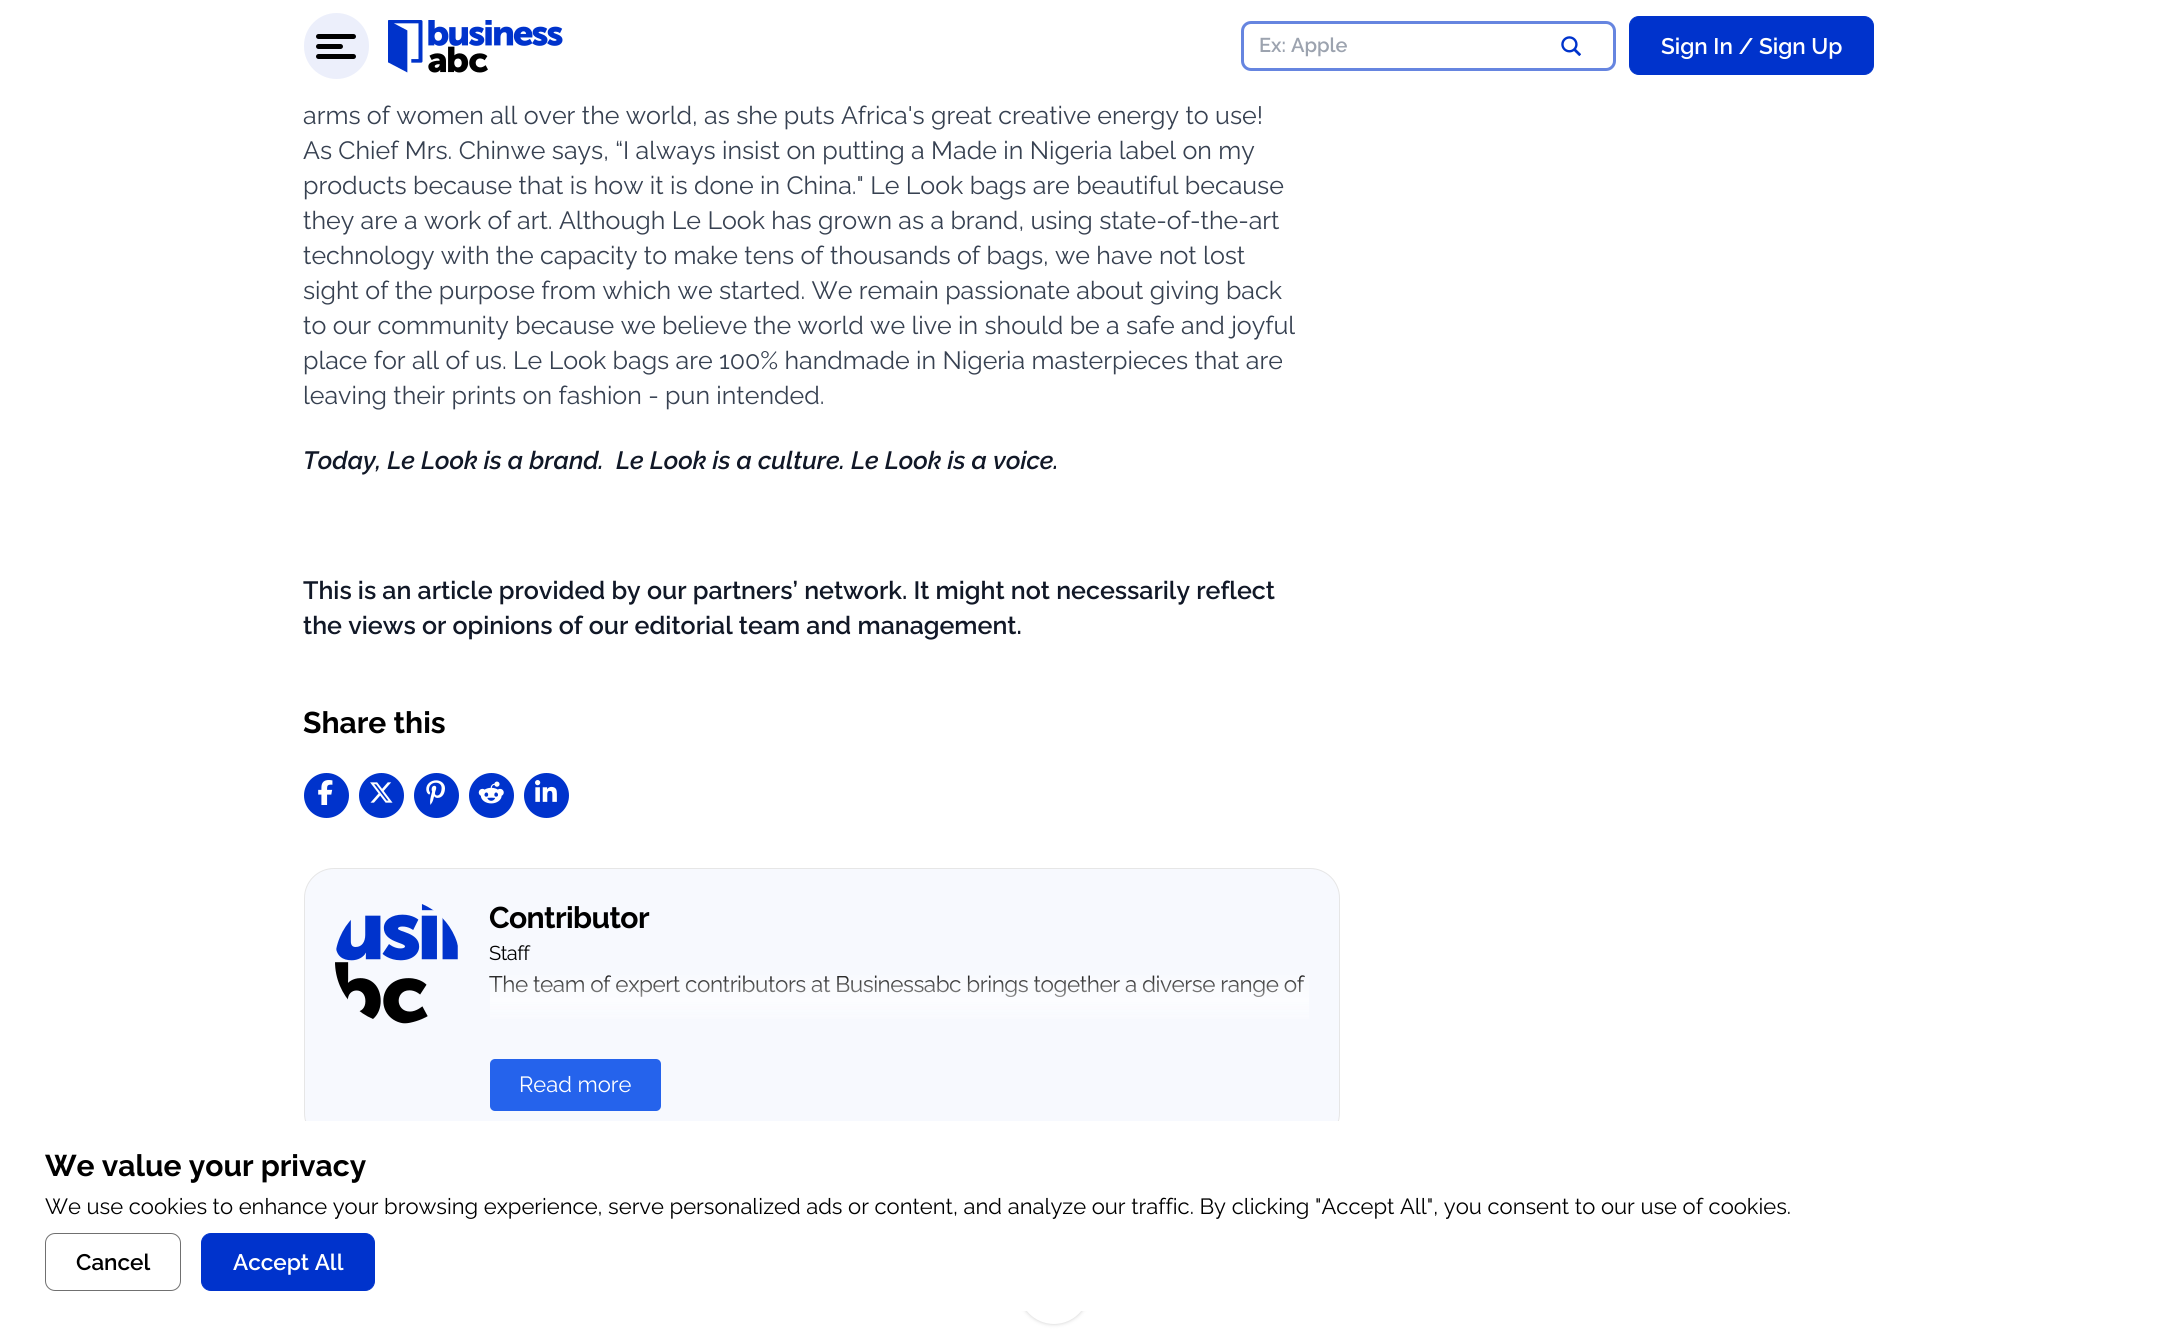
#include <cairo.h>
#include <math.h>
#include <stddef.h>


static void spaced_text(cairo_t *cr, double x, double y, const char *s, double letter, double word) {
    cairo_move_to(cr, x, y);
    while (*s) {
        char ch[5] = {0};
        int n = 0;
        do ch[n++] = *s++; while ((*s & 0xC0) == 0x80);
        cairo_show_text(cr, ch);
        cairo_rel_move_to(cr, letter + word * (*ch == ' '), 0);
    }
}

static void round_rect(cairo_t *cr, double x, double y, double w, double h, double r) {
    cairo_new_sub_path(cr);
    cairo_arc(cr, x + w - r, y + h - r, r, 0, M_PI / 2);
    cairo_arc(cr, x + r, y + h - r, r, M_PI / 2, M_PI);
    cairo_arc(cr, x + r, y + r, r, M_PI, 1.5 * M_PI);
    cairo_arc(cr, x + w - r, y + r, r, 1.5 * M_PI, 2 * M_PI);
    cairo_close_path(cr);
}

static void shadow(cairo_t *cr, double x, double y, double w, double h, double r, double blur, double alpha) {
    cairo_push_group_with_content(cr, CAIRO_CONTENT_ALPHA);
    cairo_set_operator(cr, CAIRO_OPERATOR_SOURCE);
    for (int i = 15; i >= -15 && fmin(w, h) + blur * i / 3 > 0; i -= 2) {
        double e = blur * i / 6;
        cairo_set_source_rgba(cr, 0, 0, 0, alpha * erfc((i - 1) / 8.5) / 2);
        round_rect(cr, x - e, y - e, w + 2 * e, h + 2 * e, fmax(0, fmin(r + e + blur * .6, fmin(w, h) / 2 + e)));
        cairo_fill(cr);
    }
    cairo_pattern_t *soft = cairo_pop_group(cr);
    cairo_mask(cr, soft);
    cairo_pattern_destroy(soft);
}

static void picture(cairo_t *cr, const char *path, double x, double y, double w, double h) {
    cairo_surface_t *image = cairo_image_surface_create_from_png(path);
    cairo_save(cr);
    cairo_set_source_surface(cr, image, x, y);
    cairo_rectangle(cr, x, y, w, h);
    cairo_fill(cr);
    cairo_restore(cr);
    cairo_surface_destroy(image);
}

int main(void) {
    cairo_surface_t *surface = cairo_image_surface_create(CAIRO_FORMAT_RGB24, 2176, 1336);
    cairo_t *cr = cairo_create(surface);
    cairo_font_options_t *options = cairo_font_options_create();
    cairo_font_options_set_hint_metrics(options, CAIRO_HINT_METRICS_OFF);
    cairo_font_options_set_hint_style(options, CAIRO_HINT_STYLE_NONE);
    cairo_set_font_options(cr, options);
    cairo_set_miter_limit(cr, 4);
    cairo_pattern_t *gradient;
    cairo_set_source_rgb(cr, 1, 1, 1);
    cairo_paint(cr);
    cairo_set_source_rgb(cr, 0.922, 0.937, 0.984);
    round_rect(cr, 304, 13, 65, 66, 32.5);
    cairo_fill(cr);
    cairo_set_source_rgb(cr, 0, 0, 0);
    round_rect(cr, 316, 34, 40, 5, 2.5);
    cairo_fill(cr);
    round_rect(cr, 316, 44, 27, 5, 2.5);
    cairo_fill(cr);
    round_rect(cr, 316, 54, 40, 5, 2.5);
    cairo_fill(cr);
    picture(cr, "img1.png", 388, 20, 175, 53);
    round_rect(cr, 1242.5, 22.5, 372, 47, 8.5);
    cairo_set_source_rgb(cr, 0.4, 0.522, 0.878);
    cairo_set_line_width(cr, 3);
    cairo_stroke(cr);
    cairo_select_font_face(cr, "Raleway SemiBold", CAIRO_FONT_SLANT_NORMAL, CAIRO_FONT_WEIGHT_NORMAL);
    cairo_set_font_size(cr, 20);
    cairo_set_source_rgb(cr, 0.612, 0.639, 0.686);
    cairo_move_to(cr, 1259, 52);
    cairo_show_text(cr, "Ex: Apple");
    picture(cr, "img2.png", 1561, 36, 20, 20);
    cairo_set_source_rgb(cr, 0, 0.2, 0.8);
    round_rect(cr, 1629.5, 16.5, 244, 58, 9.5);
    cairo_fill_preserve(cr);
    cairo_set_line_width(cr, 1);
    cairo_stroke(cr);
    cairo_set_font_size(cr, 22.5);
    cairo_set_source_rgb(cr, 1, 1, 1);
    cairo_move_to(cr, 1661, 54);
    cairo_show_text(cr, "Sign In / Sign Up");
    cairo_select_font_face(cr, "Raleway", CAIRO_FONT_SLANT_NORMAL, CAIRO_FONT_WEIGHT_NORMAL);
    cairo_set_font_size(cr, 25);
    cairo_set_source_rgb(cr, 0.216, 0.255, 0.318);
    cairo_move_to(cr, 303, 124);
    cairo_show_text(cr, "arms of women all over the world, as she puts Africa's great creative energy to use!");
    cairo_move_to(cr, 303, 159);
    cairo_show_text(cr, "As Chief Mrs. Chinwe says, “I always insist on putting a Made in Nigeria label on my");
    cairo_move_to(cr, 303, 194);
    cairo_show_text(cr, "products because that is how it is done in China.\" Le Look bags are beautiful because");
    cairo_move_to(cr, 303, 229);
    cairo_show_text(cr, "they are a work of art. Although Le Look has grown as a brand, using state-of-the-art");
    cairo_move_to(cr, 303, 264);
    cairo_show_text(cr, "technology with the capacity to make tens of thousands of bags, we have not lost");
    cairo_move_to(cr, 303, 299);
    cairo_show_text(cr, "sight of the purpose from which we started. We remain passionate about giving back");
    cairo_move_to(cr, 303, 334);
    cairo_show_text(cr, "to our community because we believe the world we live in should be a safe and joyful");
    cairo_move_to(cr, 303, 369);
    cairo_show_text(cr, "place for all of us. Le Look bags are 100% handmade in Nigeria masterpieces that are");
    cairo_move_to(cr, 303, 404);
    cairo_show_text(cr, "leaving their prints on fashion - pun intended.");
    cairo_select_font_face(cr, "Raleway SemiBold", CAIRO_FONT_SLANT_ITALIC, CAIRO_FONT_WEIGHT_NORMAL);
    cairo_set_source_rgb(cr, 0.067, 0.094, 0.153);
    cairo_move_to(cr, 303, 469);
    cairo_show_text(cr, "Today, Le Look is a brand.  Le Look is a culture. Le Look is a voice.");
    cairo_select_font_face(cr, "Raleway SemiBold", CAIRO_FONT_SLANT_NORMAL, CAIRO_FONT_WEIGHT_NORMAL);
    cairo_move_to(cr, 303, 599);
    cairo_show_text(cr, "This is an article provided by our partners’ network. It might not necessarily reflect");
    cairo_move_to(cr, 303, 634);
    cairo_show_text(cr, "the views or opinions of our editorial team and management.");
    cairo_select_font_face(cr, "Raleway", CAIRO_FONT_SLANT_NORMAL, CAIRO_FONT_WEIGHT_BOLD);
    cairo_set_font_size(cr, 30);
    cairo_set_source_rgb(cr, 0, 0, 0);
    cairo_move_to(cr, 303, 733);
    cairo_show_text(cr, "Share this");
    cairo_set_source_rgb(cr, 0, 0.2, 0.8);
    cairo_new_path(cr);
    cairo_arc(cr, 326.5, 795.5, 22.5, 0, 2 * M_PI);
    cairo_fill(cr);
    picture(cr, "img3.png", 318, 780, 15, 25);
    cairo_arc(cr, 381.5, 795.5, 22.5, 0, 2 * M_PI);
    cairo_fill(cr);
    picture(cr, "img4.png", 370, 782, 23, 21);
    cairo_arc(cr, 436.5, 795.5, 22.5, 0, 2 * M_PI);
    cairo_fill(cr);
    picture(cr, "img5.png", 426, 780, 19, 25);
    cairo_arc(cr, 491.5, 795.5, 22.5, 0, 2 * M_PI);
    cairo_fill(cr);
    picture(cr, "img6.png", 478, 781, 26, 23);
    cairo_arc(cr, 546.5, 795.5, 22.5, 0, 2 * M_PI);
    cairo_fill(cr);
    picture(cr, "img7.png", 535, 780, 22, 22);
    cairo_set_source_rgb(cr, 0.965, 0.973, 0.996);
    round_rect(cr, 304.5, 868.5, 1035, 274, 29.5);
    cairo_fill_preserve(cr);
    cairo_set_source_rgb(cr, 0.902, 0.902, 0.902);
    cairo_stroke(cr);
    picture(cr, "img8.png", 335, 904, 123, 120);
    cairo_set_source_rgb(cr, 0, 0, 0);
    spaced_text(cr, 489, 928, "Contributor", -0.6, 0);
    cairo_select_font_face(cr, "Raleway", CAIRO_FONT_SLANT_NORMAL, CAIRO_FONT_WEIGHT_NORMAL);
    cairo_set_font_size(cr, 20);
    spaced_text(cr, 489, 960, "Staff", -0.5, 0);
    cairo_set_font_size(cr, 22.5);
    spaced_text(cr, 489, 992, "The team of expert contributors at Businessabc brings together a diverse range of", -0.45, 0);
    gradient = cairo_pattern_create_linear(899, 969, 899, 1029);
    cairo_pattern_add_color_stop_rgba(gradient, 0, 1, 1, 1, 0);
    cairo_pattern_add_color_stop_rgba(gradient, 0.5, 1, 1, 1, 0.6);
    cairo_pattern_add_color_stop_rgba(gradient, 1, 0.961, 0.969, 0.992, 1);
    cairo_set_source(cr, gradient);
    cairo_pattern_destroy(gradient);
    cairo_rectangle(cr, 490, 975, 819, 44);
    cairo_fill(cr);
    cairo_set_source_rgb(cr, 0.145, 0.388, 0.922);
    round_rect(cr, 490, 1059, 171, 52, 5);
    cairo_fill(cr);
    cairo_set_font_size(cr, 22);
    cairo_set_source_rgb(cr, 1, 1, 1);
    cairo_move_to(cr, 519, 1092);
    cairo_show_text(cr, "Read more");
    cairo_set_source_rgb(cr, 0.8, 0.8, 0.8);
    shadow(cr, 1019, 1254, 70, 70, 35, 2, 1);
    cairo_set_source_rgb(cr, 1, 1, 1);
    cairo_arc(cr, 1054, 1289, 35, 0, 2 * M_PI);
    cairo_fill(cr);
    cairo_rectangle(cr, 305, 1121, 1034, 190);
    cairo_fill(cr);
    cairo_select_font_face(cr, "Raleway", CAIRO_FONT_SLANT_NORMAL, CAIRO_FONT_WEIGHT_BOLD);
    cairo_set_font_size(cr, 30);
    cairo_set_source_rgb(cr, 0, 0, 0);
    cairo_move_to(cr, 45, 1176);
    cairo_show_text(cr, "We value your privacy");
    cairo_select_font_face(cr, "Raleway", CAIRO_FONT_SLANT_NORMAL, CAIRO_FONT_WEIGHT_NORMAL);
    cairo_set_font_size(cr, 22);
    cairo_move_to(cr, 45, 1214);
    cairo_show_text(cr, "We use cookies to enhance your browsing experience, serve personalized ads or content, and analyze our traffic. By clicking \"Accept All\", you consent to our use of cookies.");
    round_rect(cr, 45.5, 1233.5, 135, 57, 9.5);
    cairo_set_source_rgb(cr, 0.439, 0.439, 0.439);
    cairo_stroke(cr);
    cairo_select_font_face(cr, "Raleway SemiBold", CAIRO_FONT_SLANT_NORMAL, CAIRO_FONT_WEIGHT_NORMAL);
    cairo_set_font_size(cr, 22.5);
    cairo_set_source_rgb(cr, 0, 0, 0);
    cairo_move_to(cr, 76, 1270);
    cairo_show_text(cr, "Cancel");
    cairo_set_source_rgb(cr, 0, 0.2, 0.8);
    round_rect(cr, 201.5, 1233.5, 173, 57, 9.5);
    cairo_fill_preserve(cr);
    cairo_stroke(cr);
    cairo_set_source_rgb(cr, 1, 1, 1);
    cairo_move_to(cr, 233, 1270);
    cairo_show_text(cr, "Accept All");
    cairo_surface_write_to_png(surface, "page.png");
    cairo_font_options_destroy(options);
    cairo_destroy(cr);
    cairo_surface_destroy(surface);
    return 0;
}
